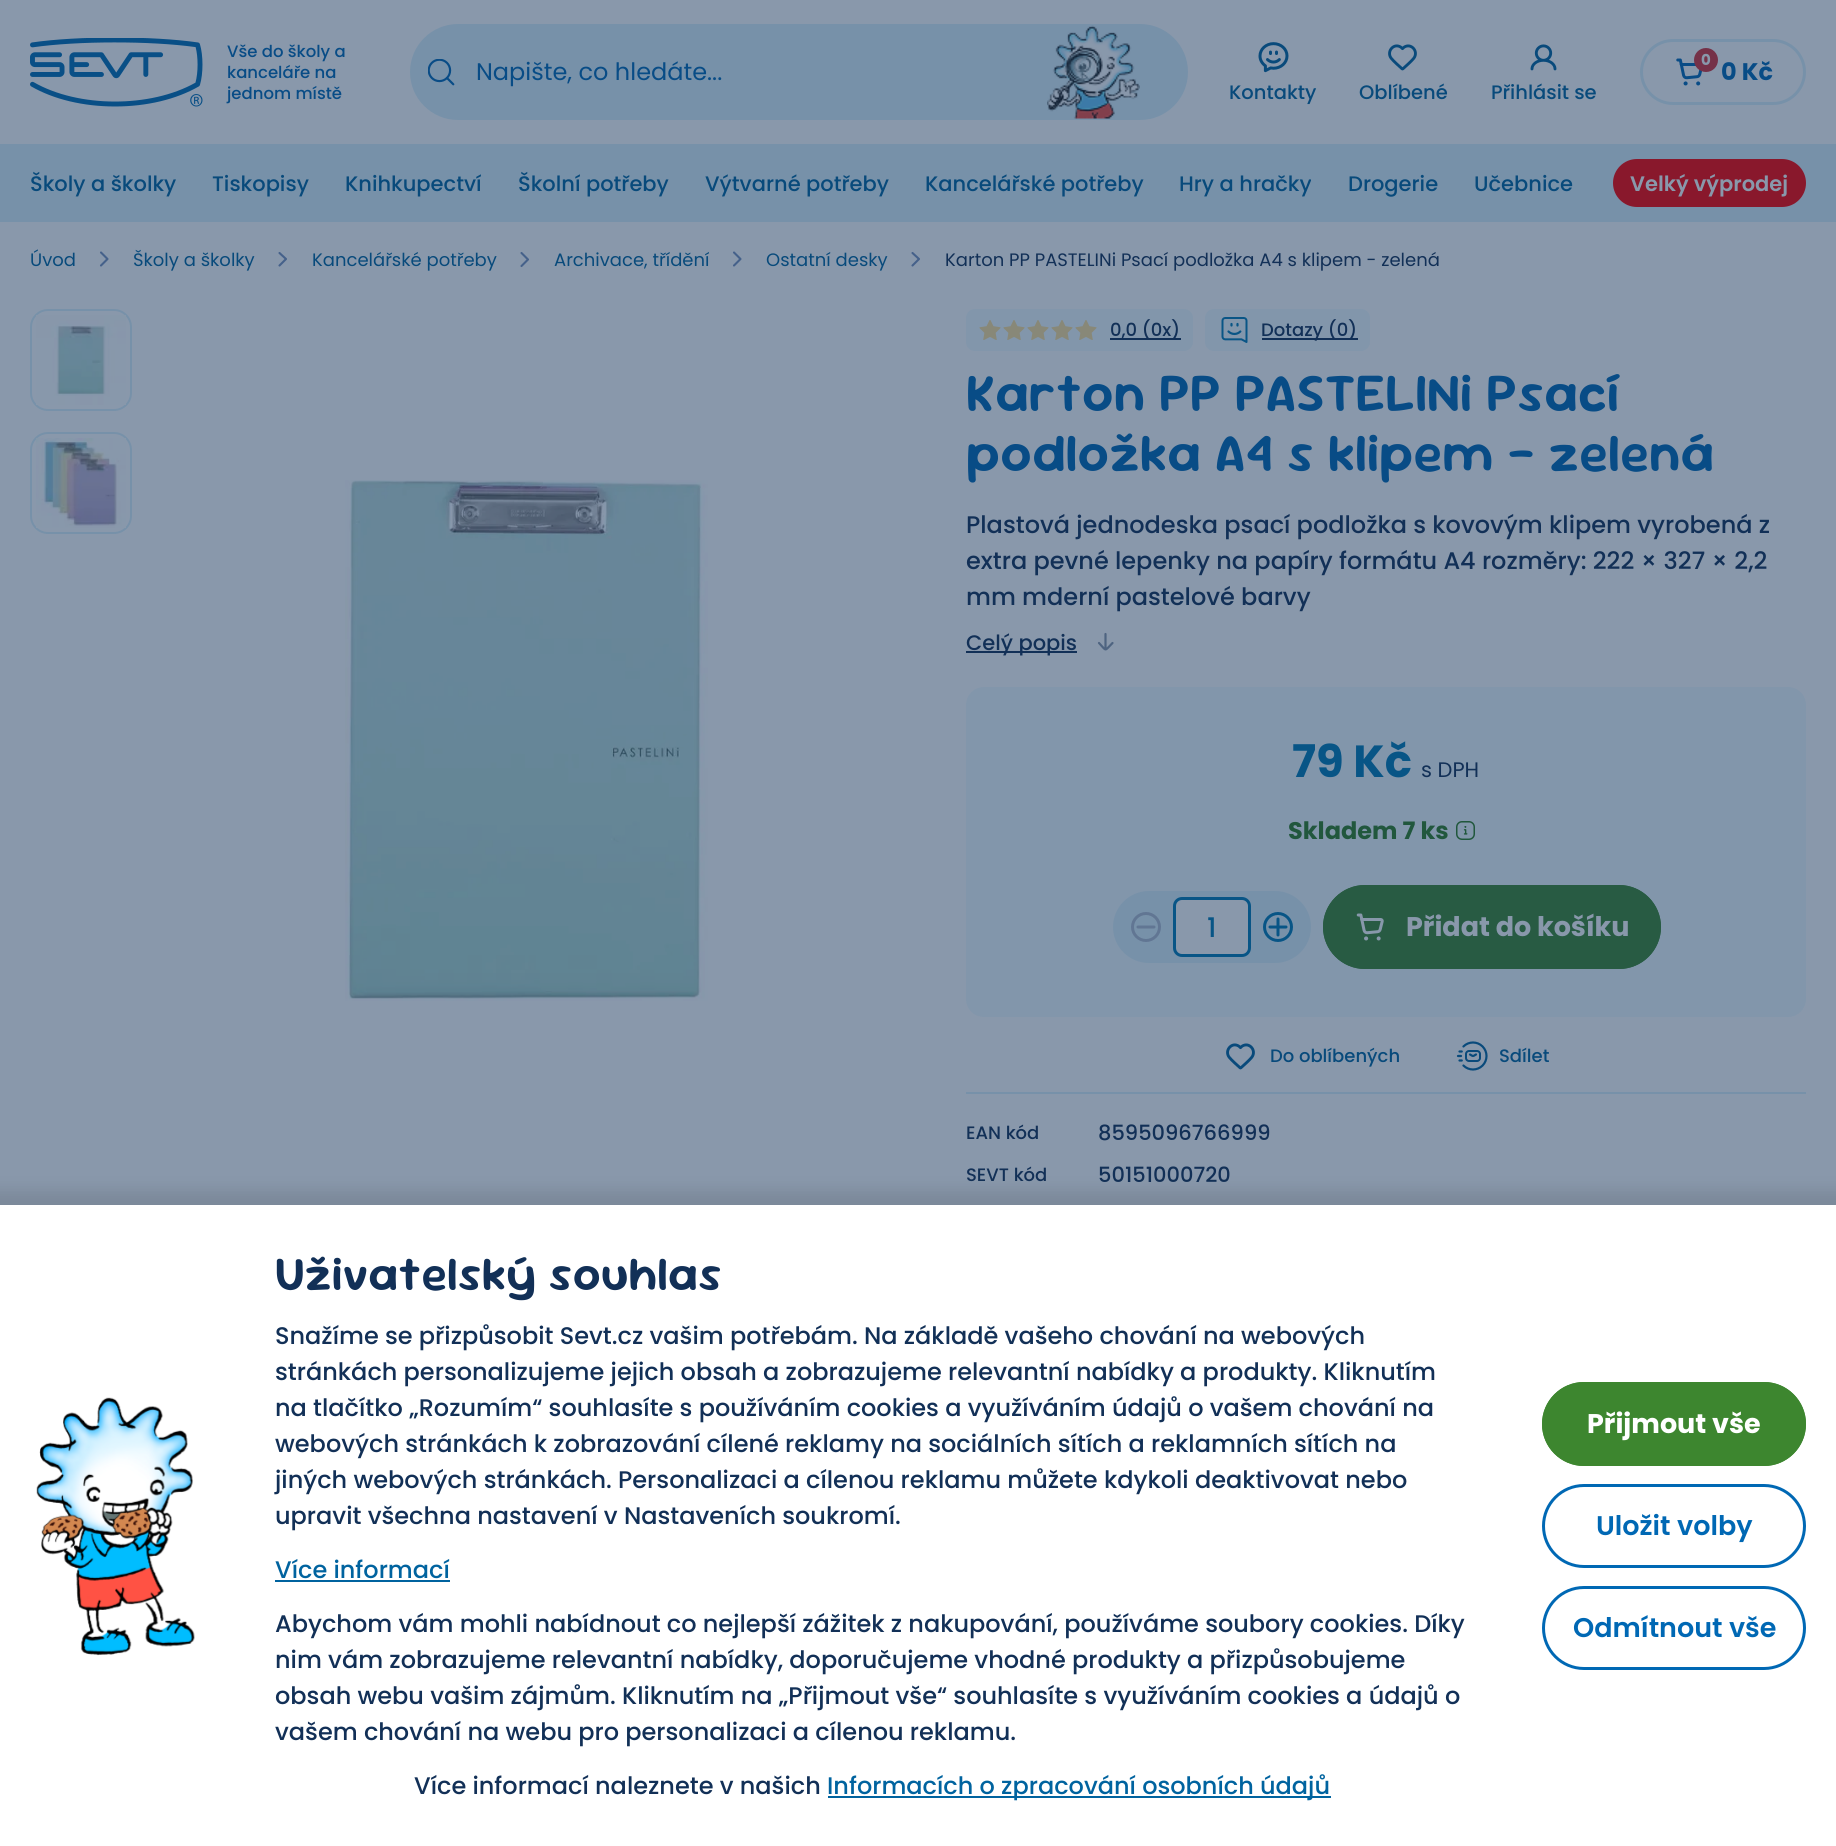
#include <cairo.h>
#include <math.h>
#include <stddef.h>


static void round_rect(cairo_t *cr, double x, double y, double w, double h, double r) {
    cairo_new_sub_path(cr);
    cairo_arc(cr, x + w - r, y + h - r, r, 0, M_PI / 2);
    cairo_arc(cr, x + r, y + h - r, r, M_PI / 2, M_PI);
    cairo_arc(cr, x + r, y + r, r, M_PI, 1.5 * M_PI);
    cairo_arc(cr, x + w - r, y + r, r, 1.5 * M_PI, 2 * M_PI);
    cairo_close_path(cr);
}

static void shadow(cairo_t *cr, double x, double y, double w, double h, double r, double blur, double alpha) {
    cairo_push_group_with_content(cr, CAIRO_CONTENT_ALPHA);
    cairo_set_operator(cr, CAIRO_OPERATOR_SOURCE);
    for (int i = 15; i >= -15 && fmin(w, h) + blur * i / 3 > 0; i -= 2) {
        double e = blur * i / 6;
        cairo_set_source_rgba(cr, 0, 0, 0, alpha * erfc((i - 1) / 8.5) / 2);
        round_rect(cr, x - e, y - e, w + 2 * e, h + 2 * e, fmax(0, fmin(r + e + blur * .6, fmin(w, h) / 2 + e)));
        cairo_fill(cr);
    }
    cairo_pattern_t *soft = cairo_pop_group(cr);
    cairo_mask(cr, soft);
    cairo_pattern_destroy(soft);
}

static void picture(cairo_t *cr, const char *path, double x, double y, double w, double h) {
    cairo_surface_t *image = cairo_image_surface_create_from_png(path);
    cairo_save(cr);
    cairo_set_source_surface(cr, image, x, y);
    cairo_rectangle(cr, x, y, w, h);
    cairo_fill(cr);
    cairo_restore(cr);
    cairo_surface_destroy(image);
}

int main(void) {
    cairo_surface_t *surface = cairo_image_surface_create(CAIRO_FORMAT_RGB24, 1836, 1846);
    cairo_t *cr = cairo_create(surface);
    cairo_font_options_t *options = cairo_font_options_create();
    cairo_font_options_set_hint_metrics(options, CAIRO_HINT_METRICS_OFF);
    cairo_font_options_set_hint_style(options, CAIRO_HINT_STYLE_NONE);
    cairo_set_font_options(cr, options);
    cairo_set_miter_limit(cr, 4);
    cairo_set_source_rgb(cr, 0.537, 0.596, 0.671);
    cairo_paint(cr);
    picture(cr, "img1.png", 30, 38, 173, 69);
    cairo_select_font_face(cr, "Poppins Medium", CAIRO_FONT_SLANT_NORMAL, CAIRO_FONT_WEIGHT_NORMAL);
    cairo_set_font_size(cr, 16.5);
    cairo_set_source_rgb(cr, 0.035, 0.298, 0.525);
    cairo_move_to(cr, 227, 57);
    cairo_show_text(cr, "Vše do školy a");
    cairo_move_to(cr, 227, 78);
    cairo_show_text(cr, "kanceláře na");
    cairo_move_to(cr, 227, 99);
    cairo_show_text(cr, "jednom místě");
    cairo_set_source_rgb(cr, 0.467, 0.569, 0.663);
    round_rect(cr, 410, 24, 778, 96, 48);
    cairo_fill(cr);
    picture(cr, "img2.png", 428, 59, 27, 27);
    cairo_select_font_face(cr, "Poppins", CAIRO_FONT_SLANT_NORMAL, CAIRO_FONT_WEIGHT_NORMAL);
    cairo_set_font_size(cr, 24);
    cairo_set_source_rgb(cr, 0.035, 0.298, 0.525);
    cairo_move_to(cr, 476, 80);
    cairo_show_text(cr, "Napište, co hledáte...");
    picture(cr, "img3.png", 1047, 25, 93, 94);
    round_rect(cr, 1641.5, 40.5, 163, 63, 31.5);
    cairo_set_source_rgb(cr, 0.467, 0.569, 0.663);
    cairo_set_line_width(cr, 3);
    cairo_stroke(cr);
    picture(cr, "img4.png", 1676, 58, 26, 28);
    cairo_set_source_rgb(cr, 0.459, 0.192, 0.282);
    cairo_arc(cr, 1706, 60, 12, 0, 2 * M_PI);
    cairo_fill(cr);
    cairo_select_font_face(cr, "Poppins", CAIRO_FONT_SLANT_NORMAL, CAIRO_FONT_WEIGHT_BOLD);
    cairo_set_font_size(cr, 15);
    cairo_set_source_rgb(cr, 0.537, 0.596, 0.671);
    cairo_move_to(cr, 1701, 65);
    cairo_show_text(cr, "0");
    cairo_set_font_size(cr, 24);
    cairo_set_source_rgb(cr, 0.035, 0.298, 0.525);
    cairo_move_to(cr, 1721, 80);
    cairo_show_text(cr, "0 Kč");
    picture(cr, "img5.png", 1258, 42, 31, 31);
    cairo_select_font_face(cr, "Poppins Medium", CAIRO_FONT_SLANT_NORMAL, CAIRO_FONT_WEIGHT_NORMAL);
    cairo_set_font_size(cr, 19.5);
    cairo_set_source_rgb(cr, 0.035, 0.29, 0.482);
    cairo_move_to(cr, 1229, 99);
    cairo_show_text(cr, "Kontakty");
    picture(cr, "img6.png", 1388, 44, 29, 27);
    cairo_move_to(cr, 1359, 99);
    cairo_show_text(cr, "Oblíbené");
    picture(cr, "img7.png", 1530, 44, 27, 27);
    cairo_move_to(cr, 1491, 99);
    cairo_show_text(cr, "Přihlásit se");
    cairo_set_source_rgb(cr, 0.467, 0.569, 0.663);
    cairo_rectangle(cr, 0, 144, 1836, 78);
    cairo_fill(cr);
    cairo_set_font_size(cr, 21);
    cairo_set_source_rgb(cr, 0.035, 0.29, 0.482);
    cairo_move_to(cr, 30, 191);
    cairo_show_text(cr, "Školy a školky");
    cairo_move_to(cr, 212, 191);
    cairo_show_text(cr, "Tiskopisy");
    cairo_move_to(cr, 345, 191);
    cairo_show_text(cr, "Knihkupectví");
    cairo_move_to(cr, 518, 191);
    cairo_show_text(cr, "Školní potřeby");
    cairo_move_to(cr, 705, 191);
    cairo_show_text(cr, "Výtvarné potřeby");
    cairo_move_to(cr, 925, 191);
    cairo_show_text(cr, "Kancelářské potřeby");
    cairo_move_to(cr, 1179, 191);
    cairo_show_text(cr, "Hry a hračky");
    cairo_move_to(cr, 1348, 191);
    cairo_show_text(cr, "Drogerie");
    cairo_move_to(cr, 1474, 191);
    cairo_show_text(cr, "Učebnice");
    cairo_set_source_rgb(cr, 0.537, 0.094, 0.173);
    round_rect(cr, 1613, 159, 193, 48, 24);
    cairo_fill(cr);
    cairo_select_font_face(cr, "Poppins SemiBold", CAIRO_FONT_SLANT_NORMAL, CAIRO_FONT_WEIGHT_NORMAL);
    cairo_set_source_rgb(cr, 0.537, 0.596, 0.671);
    cairo_move_to(cr, 1630, 191);
    cairo_show_text(cr, "Velký výprodej");
    cairo_select_font_face(cr, "Poppins", CAIRO_FONT_SLANT_NORMAL, CAIRO_FONT_WEIGHT_NORMAL);
    cairo_set_font_size(cr, 18);
    cairo_set_source_rgb(cr, 0.035, 0.29, 0.482);
    cairo_move_to(cr, 30, 266);
    cairo_show_text(cr, "Úvod");
    cairo_new_path(cr);
    cairo_move_to(cr, 101, 265.5);
    cairo_line_to(cr, 107.5, 259);
    cairo_line_to(cr, 101, 252.5);
    cairo_set_source_rgb(cr, 0.271, 0.38, 0.541);
    cairo_set_line_width(cr, 2.1);
    cairo_set_line_cap(cr, CAIRO_LINE_CAP_ROUND);
    cairo_set_line_join(cr, CAIRO_LINE_JOIN_ROUND);
    cairo_stroke(cr);
    cairo_set_source_rgb(cr, 0.035, 0.29, 0.482);
    cairo_move_to(cr, 133, 266);
    cairo_show_text(cr, "Školy a školky");
    cairo_new_path(cr);
    cairo_move_to(cr, 279.5, 265.5);
    cairo_line_to(cr, 286, 259);
    cairo_line_to(cr, 279.5, 253);
    cairo_set_source_rgb(cr, 0.271, 0.38, 0.541);
    cairo_stroke(cr);
    cairo_set_source_rgb(cr, 0.035, 0.29, 0.482);
    cairo_move_to(cr, 312, 266);
    cairo_show_text(cr, "Kancelářské potřeby");
    cairo_new_path(cr);
    cairo_move_to(cr, 521.5, 266);
    cairo_line_to(cr, 528, 259.5);
    cairo_line_to(cr, 521.5, 253);
    cairo_set_source_rgb(cr, 0.271, 0.38, 0.541);
    cairo_stroke(cr);
    cairo_set_source_rgb(cr, 0.035, 0.29, 0.482);
    cairo_move_to(cr, 554, 266);
    cairo_show_text(cr, "Archivace, třídění");
    cairo_new_path(cr);
    cairo_move_to(cr, 734, 265.5);
    cairo_line_to(cr, 740.5, 259);
    cairo_line_to(cr, 734, 252.5);
    cairo_set_source_rgb(cr, 0.271, 0.38, 0.541);
    cairo_stroke(cr);
    cairo_set_source_rgb(cr, 0.035, 0.29, 0.482);
    cairo_move_to(cr, 766, 266);
    cairo_show_text(cr, "Ostatní desky");
    cairo_new_path(cr);
    cairo_move_to(cr, 912.5, 265.5);
    cairo_line_to(cr, 919, 259);
    cairo_line_to(cr, 912.5, 253);
    cairo_set_source_rgb(cr, 0.271, 0.38, 0.541);
    cairo_stroke(cr);
    cairo_set_source_rgb(cr, 0.071, 0.188, 0.341);
    cairo_move_to(cr, 945, 266);
    cairo_show_text(cr, "Karton PP PASTELINi Psací podložka A4 s klipem - zelená");
    round_rect(cr, 31, 310, 100, 100, 17);
    cairo_set_source_rgb(cr, 0.467, 0.569, 0.663);
    cairo_set_line_width(cr, 2);
    cairo_set_line_cap(cr, CAIRO_LINE_CAP_BUTT);
    cairo_set_line_join(cr, CAIRO_LINE_JOIN_MITER);
    cairo_stroke(cr);
    picture(cr, "img8.png", 36, 315, 90, 90);
    round_rect(cr, 31, 433, 100, 100, 17);
    cairo_stroke(cr);
    picture(cr, "img9.png", 36, 438, 90, 90);
    picture(cr, "img10.png", 345, 480, 363, 521);
    cairo_set_source_rgb(cr, 0.51, 0.588, 0.671);
    round_rect(cr, 966, 309, 227, 42, 9);
    cairo_fill(cr);
    picture(cr, "img11.png", 979, 320, 22, 20);
    picture(cr, "img11.png", 1003, 320, 22, 20);
    picture(cr, "img11.png", 1027, 320, 22, 20);
    picture(cr, "img11.png", 1051, 320, 22, 20);
    picture(cr, "img11.png", 1075, 320, 22, 20);
    cairo_set_source_rgb(cr, 0.071, 0.188, 0.341);
    cairo_rectangle(cr, 1110, 338, 71, 2);
    cairo_fill(cr);
    cairo_select_font_face(cr, "Poppins Medium", CAIRO_FONT_SLANT_NORMAL, CAIRO_FONT_WEIGHT_NORMAL);
    cairo_move_to(cr, 1110, 336);
    cairo_show_text(cr, "0,0 (0x)");
    cairo_set_source_rgb(cr, 0.51, 0.588, 0.671);
    round_rect(cr, 1205, 309, 165, 42, 9);
    cairo_fill(cr);
    picture(cr, "img12.png", 1221, 317, 27, 26);
    cairo_set_source_rgb(cr, 0.071, 0.188, 0.341);
    cairo_rectangle(cr, 1262, 338, 96, 2);
    cairo_fill(cr);
    cairo_move_to(cr, 1261, 336);
    cairo_show_text(cr, "Dotazy (0)");
    cairo_select_font_face(cr, "Sour Gummy SemiBold", CAIRO_FONT_SLANT_NORMAL, CAIRO_FONT_WEIGHT_NORMAL);
    cairo_set_font_size(cr, 54);
    cairo_set_source_rgb(cr, 0.035, 0.298, 0.525);
    cairo_move_to(cr, 966, 411);
    cairo_show_text(cr, "Karton PP PASTELINi Psací");
    cairo_move_to(cr, 966, 471);
    cairo_show_text(cr, "podložka A4 s klipem - zelená");
    cairo_select_font_face(cr, "Poppins Medium", CAIRO_FONT_SLANT_NORMAL, CAIRO_FONT_WEIGHT_NORMAL);
    cairo_set_font_size(cr, 24);
    cairo_set_source_rgb(cr, 0.071, 0.188, 0.341);
    cairo_move_to(cr, 966, 533);
    cairo_show_text(cr, "Plastová jednodeska psací podložka s kovovým klipem vyrobená z");
    cairo_move_to(cr, 966, 569);
    cairo_show_text(cr, "extra pevné lepenky na papíry formátu A4 rozměry: 222 × 327 × 2,2");
    cairo_move_to(cr, 966, 605);
    cairo_show_text(cr, "mm mderní pastelové barvy");
    cairo_rectangle(cr, 966, 651, 111, 2);
    cairo_fill(cr);
    cairo_set_font_size(cr, 21);
    cairo_move_to(cr, 966, 650);
    cairo_show_text(cr, "Celý popis");
    cairo_new_path(cr);
    cairo_move_to(cr, 1105.5, 634);
    cairo_line_to(cr, 1105.5, 648.5);
    cairo_move_to(cr, 1112.5, 643);
    cairo_curve_to(cr, 1104, 651.5, 1107, 651.5, 1099, 643);
    cairo_set_source_rgb(cr, 0.306, 0.392, 0.506);
    cairo_set_line_width(cr, 2.2);
    cairo_set_line_cap(cr, CAIRO_LINE_CAP_ROUND);
    cairo_stroke(cr);
    cairo_set_source_rgb(cr, 0.51, 0.588, 0.671);
    round_rect(cr, 966, 687, 840, 330, 18);
    cairo_fill(cr);
    cairo_select_font_face(cr, "Poppins", CAIRO_FONT_SLANT_NORMAL, CAIRO_FONT_WEIGHT_BOLD);
    cairo_set_font_size(cr, 45);
    cairo_set_source_rgb(cr, 0.035, 0.333, 0.525);
    cairo_move_to(cr, 1292, 777);
    cairo_show_text(cr, "79 Kč");
    cairo_select_font_face(cr, "Poppins", CAIRO_FONT_SLANT_NORMAL, CAIRO_FONT_WEIGHT_NORMAL);
    cairo_set_font_size(cr, 21);
    cairo_set_source_rgb(cr, 0.071, 0.188, 0.341);
    cairo_move_to(cr, 1421, 777);
    cairo_show_text(cr, "s DPH");
    cairo_select_font_face(cr, "Poppins", CAIRO_FONT_SLANT_NORMAL, CAIRO_FONT_WEIGHT_BOLD);
    cairo_set_font_size(cr, 24);
    cairo_set_source_rgb(cr, 0.129, 0.341, 0.239);
    cairo_move_to(cr, 1288, 839);
    cairo_show_text(cr, "Skladem 7 ks");
    picture(cr, "img13.png", 1456, 821, 19, 19);
    cairo_set_source_rgb(cr, 0.467, 0.569, 0.663);
    round_rect(cr, 1113, 891, 198, 72, 36);
    cairo_fill(cr);
    cairo_arc(cr, 1146, 927, 13.5, 0, 2 * M_PI);
    cairo_set_source_rgb(cr, 0.38, 0.463, 0.576);
    cairo_set_line_width(cr, 3);
    cairo_set_line_cap(cr, CAIRO_LINE_CAP_BUTT);
    cairo_stroke(cr);
    cairo_new_path(cr);
    cairo_move_to(cr, 1138, 927);
    cairo_line_to(cr, 1154, 927);
    cairo_set_line_cap(cr, CAIRO_LINE_CAP_ROUND);
    cairo_set_line_join(cr, CAIRO_LINE_JOIN_ROUND);
    cairo_stroke(cr);
    cairo_set_source_rgb(cr, 0.537, 0.596, 0.671);
    round_rect(cr, 1174.5, 898.5, 75, 57, 7.5);
    cairo_fill_preserve(cr);
    cairo_set_source_rgb(cr, 0.035, 0.333, 0.525);
    cairo_set_line_cap(cr, CAIRO_LINE_CAP_BUTT);
    cairo_set_line_join(cr, CAIRO_LINE_JOIN_MITER);
    cairo_stroke(cr);
    cairo_select_font_face(cr, "Poppins Medium", CAIRO_FONT_SLANT_NORMAL, CAIRO_FONT_WEIGHT_NORMAL);
    cairo_set_font_size(cr, 27);
    cairo_move_to(cr, 1207, 937);
    cairo_show_text(cr, "1");
    cairo_new_path(cr);
    cairo_arc(cr, 1278, 927, 13.5, 0, 2 * M_PI);
    cairo_stroke(cr);
    cairo_new_path(cr);
    cairo_move_to(cr, 1278, 919);
    cairo_line_to(cr, 1278, 935);
    cairo_move_to(cr, 1270, 927);
    cairo_line_to(cr, 1286, 927);
    cairo_set_line_cap(cr, CAIRO_LINE_CAP_ROUND);
    cairo_set_line_join(cr, CAIRO_LINE_JOIN_ROUND);
    cairo_stroke(cr);
    cairo_set_source_rgb(cr, 0.157, 0.357, 0.263);
    round_rect(cr, 1323, 885, 338, 84, 42);
    cairo_fill(cr);
    round_rect(cr, 1324.5, 886.5, 335, 81, 40.5);
    cairo_set_line_cap(cr, CAIRO_LINE_CAP_BUTT);
    cairo_set_line_join(cr, CAIRO_LINE_JOIN_MITER);
    cairo_stroke(cr);
    picture(cr, "img14.png", 1356, 913, 28, 28);
    cairo_select_font_face(cr, "Poppins", CAIRO_FONT_SLANT_NORMAL, CAIRO_FONT_WEIGHT_BOLD);
    cairo_set_source_rgb(cr, 0.537, 0.596, 0.671);
    cairo_move_to(cr, 1406, 936);
    cairo_show_text(cr, "Přidat do košíku");
    picture(cr, "img6.png", 1226, 1043, 29, 27);
    cairo_select_font_face(cr, "Poppins Medium", CAIRO_FONT_SLANT_NORMAL, CAIRO_FONT_WEIGHT_NORMAL);
    cairo_set_font_size(cr, 18);
    cairo_set_source_rgb(cr, 0.035, 0.29, 0.482);
    cairo_move_to(cr, 1270, 1062);
    cairo_show_text(cr, "Do oblíbených");
    picture(cr, "img15.png", 1456, 1041, 32, 30);
    cairo_move_to(cr, 1499, 1062);
    cairo_show_text(cr, "Sdílet");
    cairo_set_source_rgb(cr, 0.467, 0.569, 0.663);
    cairo_rectangle(cr, 966, 1092, 840, 2);
    cairo_fill(cr);
    cairo_set_source_rgb(cr, 0.071, 0.188, 0.341);
    cairo_move_to(cr, 966, 1139);
    cairo_show_text(cr, "EAN kód");
    cairo_set_font_size(cr, 21);
    cairo_move_to(cr, 1098, 1140);
    cairo_show_text(cr, "8595096766999");
    cairo_set_font_size(cr, 18);
    cairo_move_to(cr, 966, 1181);
    cairo_show_text(cr, "SEVT kód");
    cairo_set_font_size(cr, 21);
    cairo_move_to(cr, 1098, 1182);
    cairo_show_text(cr, "50151000720");
    cairo_set_source_rgb(cr, 0, 0, 0);
    shadow(cr, -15, 1190, 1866, 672, 0, 7.5, 0.1);
    cairo_set_source_rgb(cr, 1, 1, 1);
    cairo_rectangle(cr, 0, 1205, 1836, 641);
    cairo_fill(cr);
    picture(cr, "img16.png", 36, 1397, 159, 259);
    cairo_select_font_face(cr, "Sour Gummy SemiBold", CAIRO_FONT_SLANT_NORMAL, CAIRO_FONT_WEIGHT_NORMAL);
    cairo_set_font_size(cr, 48);
    cairo_set_source_rgb(cr, 0.071, 0.188, 0.341);
    cairo_move_to(cr, 275, 1290);
    cairo_show_text(cr, "Uživatelský souhlas");
    cairo_select_font_face(cr, "Poppins Medium", CAIRO_FONT_SLANT_NORMAL, CAIRO_FONT_WEIGHT_NORMAL);
    cairo_set_font_size(cr, 24);
    cairo_move_to(cr, 275, 1344);
    cairo_show_text(cr, "Snažíme se přizpůsobit Sevt.cz vašim potřebám. Na základě vašeho chování na webových");
    cairo_move_to(cr, 275, 1380);
    cairo_show_text(cr, "stránkách personalizujeme jejich obsah a zobrazujeme relevantní nabídky a produkty. Kliknutím");
    cairo_move_to(cr, 275, 1416);
    cairo_show_text(cr, "na tlačítko „Rozumím“ souhlasíte s používáním cookies a využíváním údajů o vašem chování na");
    cairo_move_to(cr, 275, 1452);
    cairo_show_text(cr, "webových stránkách k zobrazování cílené reklamy na sociálních sítích a reklamních sítích na");
    cairo_move_to(cr, 275, 1488);
    cairo_show_text(cr, "jiných webových stránkách. Personalizaci a cílenou reklamu můžete kdykoli deaktivovat nebo");
    cairo_move_to(cr, 275, 1524);
    cairo_show_text(cr, "upravit všechna nastavení v Nastaveních soukromí.");
    cairo_set_source_rgb(cr, 0, 0.388, 0.624);
    cairo_move_to(cr, 275, 1578);
    cairo_show_text(cr, "Více informací");
    cairo_rectangle(cr, 275, 1580, 175, 2);
    cairo_fill(cr);
    cairo_set_source_rgb(cr, 0.071, 0.188, 0.341);
    cairo_move_to(cr, 275, 1632);
    cairo_show_text(cr, "Abychom vám mohli nabídnout co nejlepší zážitek z nakupování, používáme soubory cookies. Díky");
    cairo_move_to(cr, 275, 1668);
    cairo_show_text(cr, "nim vám zobrazujeme relevantní nabídky, doporučujeme vhodné produkty a přizpůsobujeme");
    cairo_move_to(cr, 275, 1704);
    cairo_show_text(cr, "obsah webu vašim zájmům. Kliknutím na „Přijmout vše“ souhlasíte s využíváním cookies a údajů o");
    cairo_move_to(cr, 275, 1740);
    cairo_show_text(cr, "vašem chování na webu pro personalizaci a cílenou reklamu.");
    cairo_move_to(cr, 414, 1794);
    cairo_show_text(cr, "Více informací naleznete v našich");
    cairo_set_source_rgb(cr, 0, 0.388, 0.624);
    cairo_rectangle(cr, 828, 1796, 503, 2);
    cairo_fill(cr);
    cairo_move_to(cr, 827, 1794);
    cairo_show_text(cr, "Informacích o zpracování osobních údajů");
    cairo_set_source_rgb(cr, 0.239, 0.525, 0.184);
    round_rect(cr, 1542, 1382, 264, 84, 42);
    cairo_fill(cr);
    round_rect(cr, 1543.5, 1383.5, 261, 81, 40.5);
    cairo_stroke(cr);
    cairo_select_font_face(cr, "Poppins", CAIRO_FONT_SLANT_NORMAL, CAIRO_FONT_WEIGHT_BOLD);
    cairo_set_font_size(cr, 27);
    cairo_set_source_rgb(cr, 1, 1, 1);
    cairo_move_to(cr, 1587, 1433);
    cairo_show_text(cr, "Přijmout vše");
    round_rect(cr, 1543.5, 1485.5, 261, 81, 40.5);
    cairo_set_source_rgb(cr, 0, 0.408, 0.706);
    cairo_stroke(cr);
    cairo_select_font_face(cr, "Poppins SemiBold", CAIRO_FONT_SLANT_NORMAL, CAIRO_FONT_WEIGHT_NORMAL);
    cairo_move_to(cr, 1596, 1535);
    cairo_show_text(cr, "Uložit volby");
    round_rect(cr, 1543.5, 1587.5, 261, 81, 40.5);
    cairo_stroke(cr);
    cairo_move_to(cr, 1573, 1637);
    cairo_show_text(cr, "Odmítnout vše");
    cairo_surface_write_to_png(surface, "page.png");
    cairo_font_options_destroy(options);
    cairo_destroy(cr);
    cairo_surface_destroy(surface);
    return 0;
}
